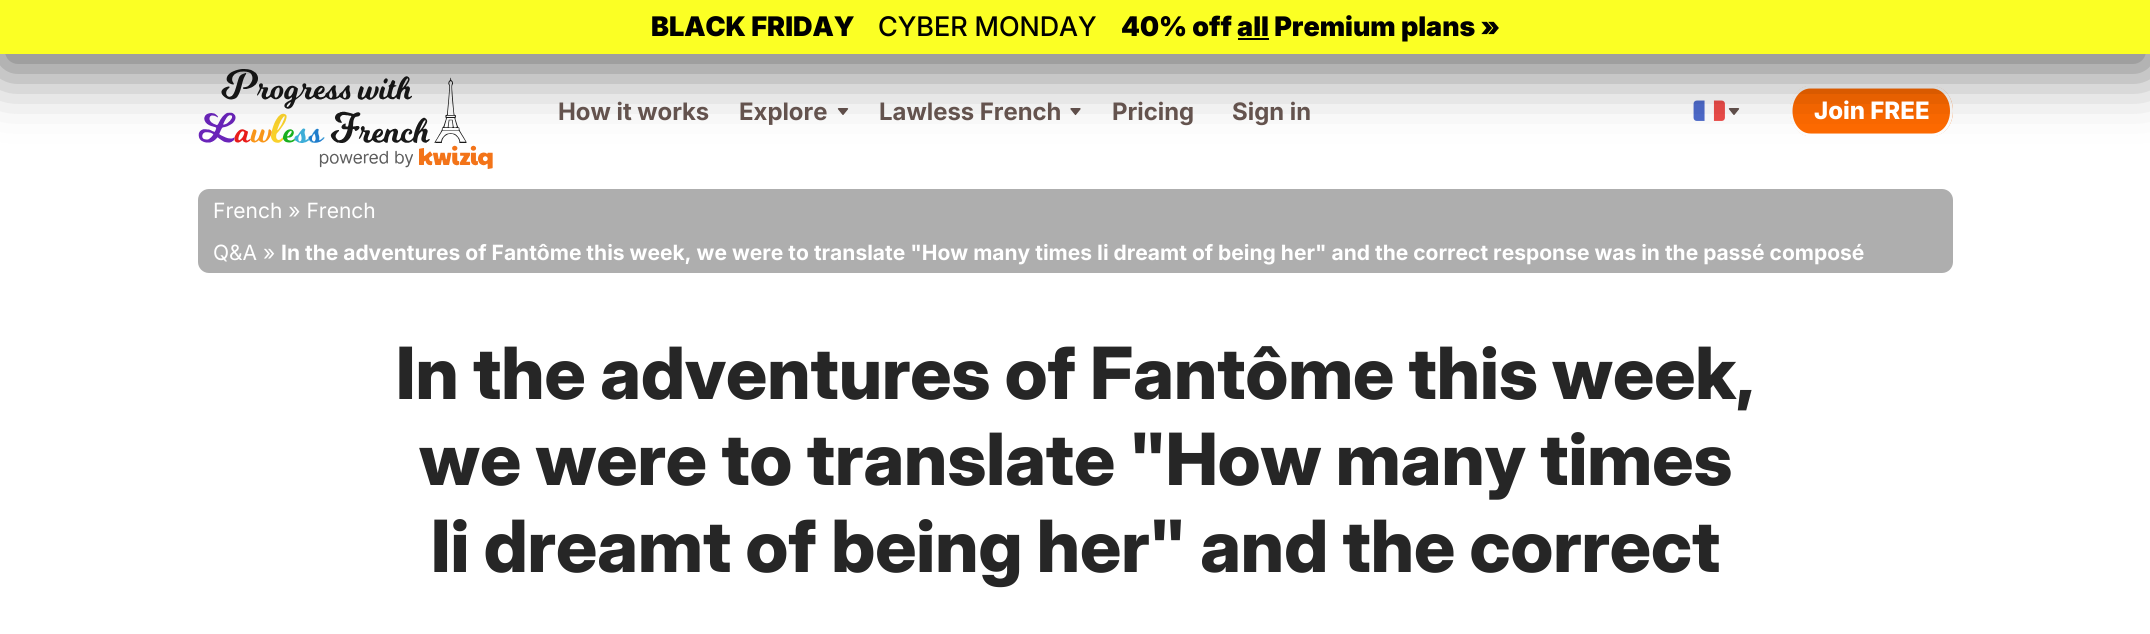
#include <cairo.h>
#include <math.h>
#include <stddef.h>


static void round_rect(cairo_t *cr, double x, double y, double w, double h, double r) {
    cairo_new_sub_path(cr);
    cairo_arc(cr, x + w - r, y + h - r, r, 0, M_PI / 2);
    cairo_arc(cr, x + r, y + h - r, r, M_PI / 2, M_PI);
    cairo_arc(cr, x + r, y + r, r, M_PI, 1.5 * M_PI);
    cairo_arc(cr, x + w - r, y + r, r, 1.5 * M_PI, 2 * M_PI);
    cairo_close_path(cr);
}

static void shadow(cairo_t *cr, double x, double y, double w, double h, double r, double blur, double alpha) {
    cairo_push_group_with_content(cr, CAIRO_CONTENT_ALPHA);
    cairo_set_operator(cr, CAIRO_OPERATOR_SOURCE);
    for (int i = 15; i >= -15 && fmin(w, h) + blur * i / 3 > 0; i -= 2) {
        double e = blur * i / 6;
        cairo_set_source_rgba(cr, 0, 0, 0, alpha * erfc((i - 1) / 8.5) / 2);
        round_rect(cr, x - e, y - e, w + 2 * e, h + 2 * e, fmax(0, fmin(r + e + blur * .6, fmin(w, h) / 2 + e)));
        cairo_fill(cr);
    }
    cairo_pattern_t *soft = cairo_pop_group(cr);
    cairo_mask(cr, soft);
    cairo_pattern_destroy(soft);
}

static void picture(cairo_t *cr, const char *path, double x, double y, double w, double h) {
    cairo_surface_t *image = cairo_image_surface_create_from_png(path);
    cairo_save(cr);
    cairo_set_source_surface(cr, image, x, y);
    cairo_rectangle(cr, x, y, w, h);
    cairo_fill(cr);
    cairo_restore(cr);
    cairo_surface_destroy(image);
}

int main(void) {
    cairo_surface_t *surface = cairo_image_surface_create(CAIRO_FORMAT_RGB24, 2150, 634);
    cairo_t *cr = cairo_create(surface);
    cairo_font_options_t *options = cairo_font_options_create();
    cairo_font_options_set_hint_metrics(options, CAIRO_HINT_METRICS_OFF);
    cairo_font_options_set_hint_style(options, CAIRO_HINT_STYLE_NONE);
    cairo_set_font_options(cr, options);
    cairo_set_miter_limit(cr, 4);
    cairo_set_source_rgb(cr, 1, 1, 1);
    cairo_paint(cr);
    picture(cr, "img1.png", 198, 69, 295, 100);
    picture(cr, "img2.png", 837, 108, 12, 7);
    picture(cr, "img3.png", 1070, 108, 11, 8);
    picture(cr, "img4.png", 1693, 100, 32, 21);
    picture(cr, "img2.png", 1728, 108, 12, 7);
    cairo_set_source_rgb(cr, 1, 0.416, 0);
    cairo_new_path(cr);
    cairo_move_to(cr, 1810, 86);
    cairo_line_to(cr, 1932, 86);
    cairo_curve_to(cr, 1944, 86, 1953, 97, 1953, 111);
    cairo_curve_to(cr, 1953, 125, 1944, 136, 1932, 136);
    cairo_line_to(cr, 1810, 136);
    cairo_curve_to(cr, 1799, 136, 1790, 125, 1790, 111);
    cairo_curve_to(cr, 1790, 97, 1799, 86, 1810, 86);
    cairo_close_path(cr);
    cairo_fill(cr);
    cairo_new_path(cr);
    cairo_move_to(cr, 1810.5, 87);
    cairo_line_to(cr, 1932, 87);
    cairo_curve_to(cr, 1943, 87, 1951.5, 97.5, 1951.5, 111);
    cairo_curve_to(cr, 1951.5, 124.5, 1943, 135, 1932, 135);
    cairo_line_to(cr, 1810.5, 135);
    cairo_curve_to(cr, 1799.5, 135, 1791, 124.5, 1791, 111);
    cairo_curve_to(cr, 1791, 97.5, 1799.5, 87, 1810.5, 87);
    cairo_close_path(cr);
    cairo_set_source_rgb(cr, 1, 1, 1);
    cairo_set_line_width(cr, 3);
    cairo_stroke(cr);
    cairo_set_source_rgb(cr, 0, 0, 0);
    shadow(cr, 0, 15, 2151, 54, 0, 30, 0.6);
    cairo_set_source_rgb(cr, 0.984, 1, 0.141);
    cairo_rectangle(cr, 0, 0, 2150, 54);
    cairo_fill(cr);
    cairo_select_font_face(cr, "Inter Black", CAIRO_FONT_SLANT_NORMAL, CAIRO_FONT_WEIGHT_NORMAL);
    cairo_set_font_size(cr, 27);
    cairo_set_source_rgb(cr, 0, 0, 0);
    cairo_move_to(cr, 651, 36);
    cairo_show_text(cr, "BLACK FRIDAY");
    cairo_select_font_face(cr, "Inter Medium", CAIRO_FONT_SLANT_NORMAL, CAIRO_FONT_WEIGHT_NORMAL);
    cairo_move_to(cr, 878, 36);
    cairo_show_text(cr, "CYBER MONDAY");
    cairo_select_font_face(cr, "Inter Black", CAIRO_FONT_SLANT_NORMAL, CAIRO_FONT_WEIGHT_NORMAL);
    cairo_move_to(cr, 1121, 36);
    cairo_show_text(cr, "40% off all Premium plans »");
    cairo_rectangle(cr, 1238, 38, 31, 2);
    cairo_fill(cr);
    cairo_select_font_face(cr, "Inter", CAIRO_FONT_SLANT_NORMAL, CAIRO_FONT_WEIGHT_BOLD);
    cairo_set_font_size(cr, 24);
    cairo_set_source_rgb(cr, 0.392, 0.325, 0.306);
    cairo_move_to(cr, 558, 120);
    cairo_show_text(cr, "How it works");
    cairo_move_to(cr, 739, 120);
    cairo_show_text(cr, "Explore");
    cairo_move_to(cr, 879, 120);
    cairo_show_text(cr, "Lawless French");
    cairo_move_to(cr, 1112, 120);
    cairo_show_text(cr, "Pricing");
    cairo_move_to(cr, 1232, 120);
    cairo_show_text(cr, "Sign in");
    cairo_select_font_face(cr, "Inter ExtraBold", CAIRO_FONT_SLANT_NORMAL, CAIRO_FONT_WEIGHT_NORMAL);
    cairo_set_source_rgb(cr, 1, 1, 1);
    cairo_move_to(cr, 1814, 119);
    cairo_show_text(cr, "Join FREE");
    cairo_set_source_rgb(cr, 0.682, 0.682, 0.682);
    round_rect(cr, 198, 189, 1755, 84, 11);
    cairo_fill(cr);
    cairo_select_font_face(cr, "Inter", CAIRO_FONT_SLANT_NORMAL, CAIRO_FONT_WEIGHT_NORMAL);
    cairo_set_font_size(cr, 21);
    cairo_set_source_rgb(cr, 1, 1, 1);
    cairo_move_to(cr, 213, 218);
    cairo_show_text(cr, "French » French");
    cairo_move_to(cr, 213, 260);
    cairo_show_text(cr, "Q&A »");
    cairo_select_font_face(cr, "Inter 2", CAIRO_FONT_SLANT_NORMAL, CAIRO_FONT_WEIGHT_BOLD);
    cairo_move_to(cr, 281, 260);
    cairo_show_text(cr, "In the adventures of Fantôme this week, we were to translate \"How many times Ii dreamt of being her\" and the correct response was in the passé composé");
    cairo_select_font_face(cr, "Inter 2 ExtraBold", CAIRO_FONT_SLANT_NORMAL, CAIRO_FONT_WEIGHT_NORMAL);
    cairo_set_font_size(cr, 72);
    cairo_set_source_rgb(cr, 0.149, 0.149, 0.149);
    cairo_move_to(cr, 396, 399);
    cairo_show_text(cr, "In the adventures of Fantôme this week,");
    cairo_move_to(cr, 419, 485);
    cairo_show_text(cr, "we were to translate \"How many times");
    cairo_move_to(cr, 431, 572);
    cairo_show_text(cr, "Ii dreamt of being her\" and the correct");
    cairo_surface_write_to_png(surface, "page.png");
    cairo_font_options_destroy(options);
    cairo_destroy(cr);
    cairo_surface_destroy(surface);
    return 0;
}
